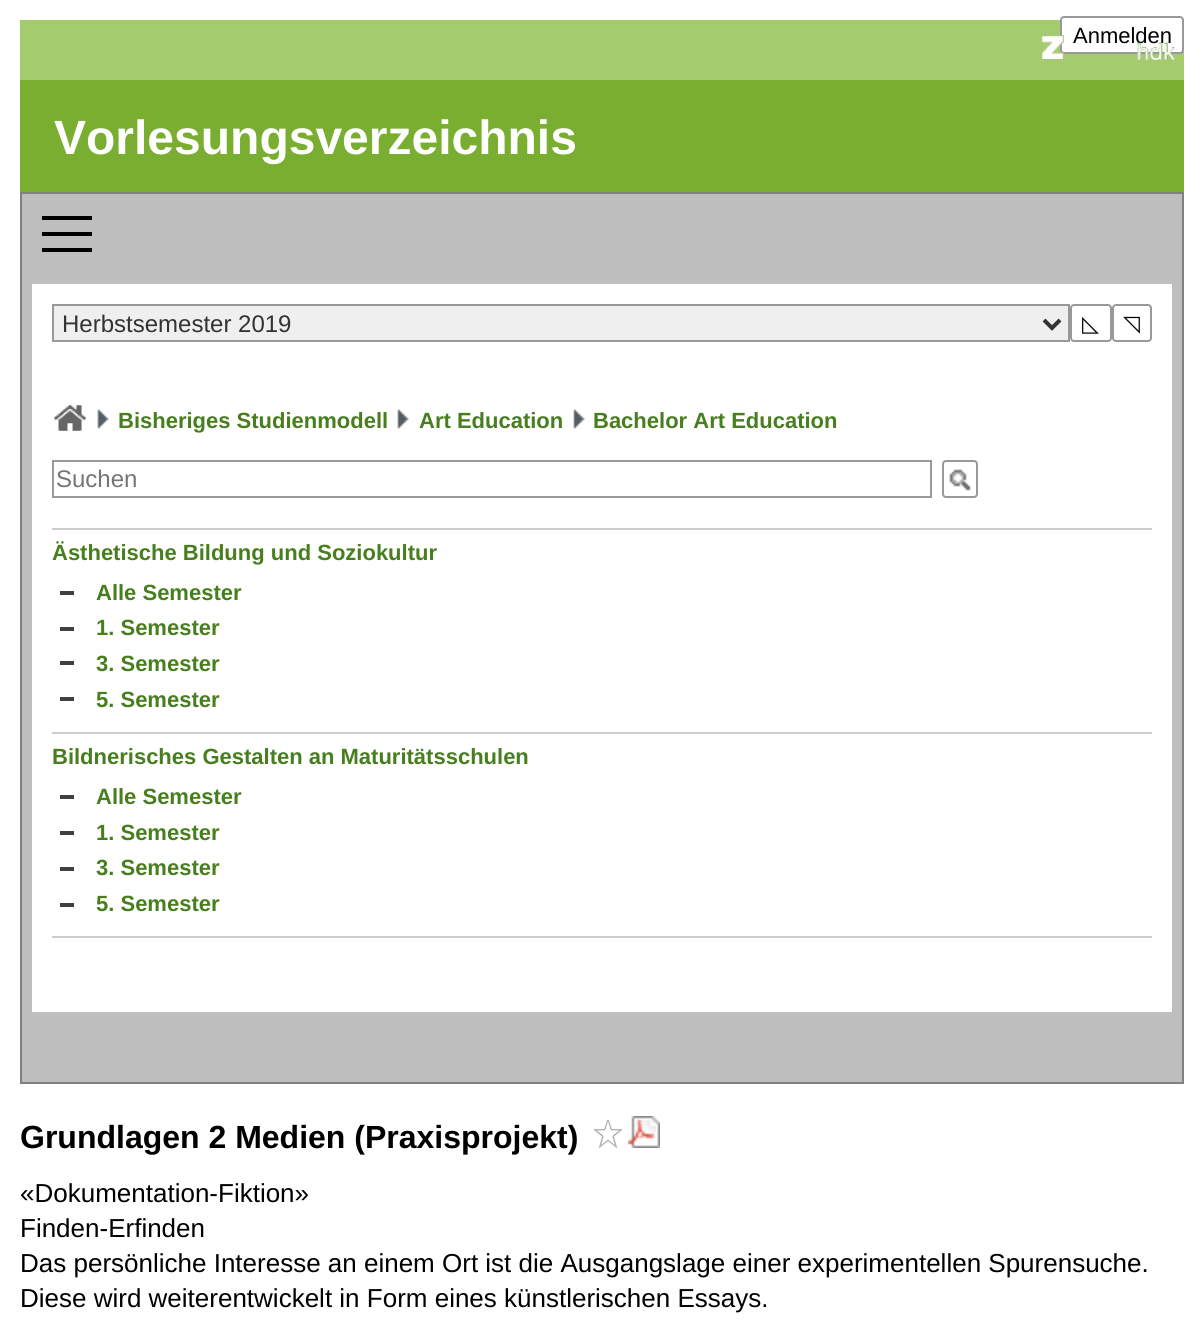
#include <cairo.h>
#include <math.h>
#include <stddef.h>


static void round_rect(cairo_t *cr, double x, double y, double w, double h, double r) {
    cairo_new_sub_path(cr);
    cairo_arc(cr, x + w - r, y + h - r, r, 0, M_PI / 2);
    cairo_arc(cr, x + r, y + h - r, r, M_PI / 2, M_PI);
    cairo_arc(cr, x + r, y + r, r, M_PI, 1.5 * M_PI);
    cairo_arc(cr, x + w - r, y + r, r, 1.5 * M_PI, 2 * M_PI);
    cairo_close_path(cr);
}

static void picture(cairo_t *cr, const char *path, double x, double y, double w, double h) {
    cairo_surface_t *image = cairo_image_surface_create_from_png(path);
    cairo_save(cr);
    cairo_set_source_surface(cr, image, x, y);
    cairo_rectangle(cr, x, y, w, h);
    cairo_fill(cr);
    cairo_restore(cr);
    cairo_surface_destroy(image);
}

int main(void) {
    cairo_surface_t *surface = cairo_image_surface_create(CAIRO_FORMAT_RGB24, 1203, 1337);
    cairo_t *cr = cairo_create(surface);
    cairo_font_options_t *options = cairo_font_options_create();
    cairo_font_options_set_hint_metrics(options, CAIRO_HINT_METRICS_OFF);
    cairo_font_options_set_hint_style(options, CAIRO_HINT_STYLE_NONE);
    cairo_set_font_options(cr, options);
    cairo_set_miter_limit(cr, 4);
    cairo_set_source_rgb(cr, 1, 1, 1);
    cairo_paint(cr);
    cairo_set_source_rgb(cr, 0.643, 0.8, 0.435);
    cairo_rectangle(cr, 20, 20, 1164, 60);
    cairo_fill(cr);
    cairo_set_source_rgb(cr, 1, 1, 1);
    round_rect(cr, 1061, 17, 122, 36, 3);
    cairo_fill_preserve(cr);
    cairo_set_source_rgb(cr, 0.6, 0.6, 0.6);
    cairo_stroke(cr);
    cairo_select_font_face(cr, "Liberation Sans", CAIRO_FONT_SLANT_NORMAL, CAIRO_FONT_WEIGHT_NORMAL);
    cairo_set_font_size(cr, 22);
    cairo_set_source_rgb(cr, 0, 0, 0);
    cairo_move_to(cr, 1073, 43);
    cairo_show_text(cr, "Anmelden");
    picture(cr, "img1.png", 1042, 35, 133, 25);
    cairo_set_source_rgb(cr, 0.475, 0.682, 0.192);
    cairo_rectangle(cr, 20, 80, 1164, 112);
    cairo_fill(cr);
    cairo_select_font_face(cr, "Liberation Sans", CAIRO_FONT_SLANT_NORMAL, CAIRO_FONT_WEIGHT_BOLD);
    cairo_set_font_size(cr, 48);
    cairo_set_source_rgb(cr, 1, 1, 1);
    cairo_move_to(cr, 54, 154);
    cairo_show_text(cr, "Vorlesungsverzeichnis");
    cairo_set_source_rgb(cr, 0.745, 0.745, 0.745);
    cairo_rectangle(cr, 22, 194, 1160, 888);
    cairo_fill(cr);
    cairo_set_source_rgb(cr, 0.502, 0.502, 0.502);
    cairo_rectangle(cr, 20, 192, 1164, 2);
    cairo_fill(cr);
    cairo_rectangle(cr, 1182, 192, 2, 892);
    cairo_fill(cr);
    cairo_rectangle(cr, 20, 192, 2, 82);
    cairo_fill(cr);
    cairo_set_source_rgb(cr, 0, 0, 0);
    cairo_rectangle(cr, 42, 216, 50, 4);
    cairo_fill(cr);
    cairo_rectangle(cr, 42, 232, 50, 4);
    cairo_fill(cr);
    cairo_rectangle(cr, 42, 248, 50, 4);
    cairo_fill(cr);
    cairo_set_source_rgb(cr, 0.502, 0.502, 0.502);
    cairo_rectangle(cr, 20, 1082, 1164, 2);
    cairo_fill(cr);
    cairo_rectangle(cr, 20, 274, 2, 810);
    cairo_fill(cr);
    cairo_set_source_rgb(cr, 1, 1, 1);
    cairo_rectangle(cr, 32, 284, 1140, 728);
    cairo_fill(cr);
    cairo_set_source_rgb(cr, 0.937, 0.937, 0.937);
    cairo_rectangle(cr, 53, 305, 1016, 36);
    cairo_fill_preserve(cr);
    cairo_set_source_rgb(cr, 0.6, 0.6, 0.6);
    cairo_stroke(cr);
    cairo_new_path(cr);
    cairo_move_to(cr, 1044, 320);
    cairo_line_to(cr, 1052, 328);
    cairo_line_to(cr, 1060, 320);
    cairo_set_source_rgb(cr, 0.2, 0.2, 0.2);
    cairo_set_line_width(cr, 4);
    cairo_stroke(cr);
    cairo_select_font_face(cr, "Liberation Sans", CAIRO_FONT_SLANT_NORMAL, CAIRO_FONT_WEIGHT_NORMAL);
    cairo_set_font_size(cr, 24);
    cairo_move_to(cr, 62, 332);
    cairo_show_text(cr, "Herbstsemester 2019");
    round_rect(cr, 1071, 305, 40, 36, 3);
    cairo_set_source_rgb(cr, 0.6, 0.6, 0.6);
    cairo_set_line_width(cr, 2);
    cairo_stroke(cr);
    cairo_select_font_face(cr, "DejaVu Sans", CAIRO_FONT_SLANT_NORMAL, CAIRO_FONT_WEIGHT_NORMAL);
    cairo_set_font_size(cr, 22);
    cairo_set_source_rgb(cr, 0, 0, 0);
    cairo_move_to(cr, 1082, 331);
    cairo_show_text(cr, "◺");
    round_rect(cr, 1113, 305, 38, 36, 3);
    cairo_set_source_rgb(cr, 0.6, 0.6, 0.6);
    cairo_stroke(cr);
    cairo_set_source_rgb(cr, 0, 0, 0);
    cairo_move_to(cr, 1123, 331);
    cairo_show_text(cr, "◹");
    picture(cr, "img2.png", 54, 405, 33, 26);
    picture(cr, "img3.png", 97, 409, 12, 20);
    cairo_select_font_face(cr, "Liberation Sans", CAIRO_FONT_SLANT_NORMAL, CAIRO_FONT_WEIGHT_BOLD);
    cairo_set_source_rgb(cr, 0.278, 0.494, 0.118);
    cairo_move_to(cr, 118, 428);
    cairo_show_text(cr, "Bisheriges Studienmodell");
    picture(cr, "img3.png", 397, 409, 12, 20);
    cairo_move_to(cr, 419, 428);
    cairo_show_text(cr, "Art Education");
    picture(cr, "img3.png", 573, 409, 12, 20);
    cairo_move_to(cr, 593, 428);
    cairo_show_text(cr, "Bachelor Art Education");
    cairo_rectangle(cr, 53, 461, 878, 36);
    cairo_set_source_rgb(cr, 0.6, 0.6, 0.6);
    cairo_stroke(cr);
    cairo_select_font_face(cr, "Liberation Sans", CAIRO_FONT_SLANT_NORMAL, CAIRO_FONT_WEIGHT_NORMAL);
    cairo_set_font_size(cr, 24);
    cairo_set_source_rgb(cr, 0.459, 0.459, 0.459);
    cairo_move_to(cr, 56, 487);
    cairo_show_text(cr, "Suchen");
    picture(cr, "img4.png", 949, 469, 22, 22);
    round_rect(cr, 943, 461, 34, 36, 3);
    cairo_set_source_rgb(cr, 0.6, 0.6, 0.6);
    cairo_stroke(cr);
    cairo_set_source_rgb(cr, 0.8, 0.8, 0.8);
    cairo_rectangle(cr, 52, 528, 1100, 2);
    cairo_fill(cr);
    cairo_rectangle(cr, 52, 732, 1100, 2);
    cairo_fill(cr);
    cairo_select_font_face(cr, "Liberation Sans", CAIRO_FONT_SLANT_NORMAL, CAIRO_FONT_WEIGHT_BOLD);
    cairo_set_font_size(cr, 22);
    cairo_set_source_rgb(cr, 0.278, 0.494, 0.118);
    cairo_move_to(cr, 52, 560);
    cairo_show_text(cr, "Ästhetische Bildung und Soziokultur");
    cairo_set_source_rgb(cr, 0.251, 0.251, 0.251);
    cairo_rectangle(cr, 60, 591, 14, 4);
    cairo_fill(cr);
    cairo_set_source_rgb(cr, 0.278, 0.494, 0.118);
    cairo_move_to(cr, 96, 600);
    cairo_show_text(cr, "Alle Semester");
    cairo_set_source_rgb(cr, 0.251, 0.251, 0.251);
    cairo_rectangle(cr, 60, 627, 14, 4);
    cairo_fill(cr);
    cairo_set_source_rgb(cr, 0.278, 0.494, 0.118);
    cairo_move_to(cr, 96, 635);
    cairo_show_text(cr, "1. Semester");
    cairo_set_source_rgb(cr, 0.251, 0.251, 0.251);
    cairo_rectangle(cr, 60, 661, 14, 4);
    cairo_fill(cr);
    cairo_set_source_rgb(cr, 0.278, 0.494, 0.118);
    cairo_move_to(cr, 96, 671);
    cairo_show_text(cr, "3. Semester");
    cairo_set_source_rgb(cr, 0.251, 0.251, 0.251);
    cairo_rectangle(cr, 60, 697, 14, 4);
    cairo_fill(cr);
    cairo_set_source_rgb(cr, 0.278, 0.494, 0.118);
    cairo_move_to(cr, 96, 707);
    cairo_show_text(cr, "5. Semester");
    cairo_set_source_rgb(cr, 0.8, 0.8, 0.8);
    cairo_rectangle(cr, 52, 936, 1100, 2);
    cairo_fill(cr);
    cairo_set_source_rgb(cr, 0.278, 0.494, 0.118);
    cairo_move_to(cr, 52, 764);
    cairo_show_text(cr, "Bildnerisches Gestalten an Maturitätsschulen");
    cairo_set_source_rgb(cr, 0.251, 0.251, 0.251);
    cairo_rectangle(cr, 60, 795, 14, 4);
    cairo_fill(cr);
    cairo_set_source_rgb(cr, 0.278, 0.494, 0.118);
    cairo_move_to(cr, 96, 804);
    cairo_show_text(cr, "Alle Semester");
    cairo_set_source_rgb(cr, 0.251, 0.251, 0.251);
    cairo_rectangle(cr, 60, 831, 14, 4);
    cairo_fill(cr);
    cairo_set_source_rgb(cr, 0.278, 0.494, 0.118);
    cairo_move_to(cr, 96, 840);
    cairo_show_text(cr, "1. Semester");
    cairo_set_source_rgb(cr, 0.251, 0.251, 0.251);
    cairo_rectangle(cr, 60, 867, 14, 4);
    cairo_fill(cr);
    cairo_set_source_rgb(cr, 0.278, 0.494, 0.118);
    cairo_move_to(cr, 96, 875);
    cairo_show_text(cr, "3. Semester");
    cairo_set_source_rgb(cr, 0.251, 0.251, 0.251);
    cairo_rectangle(cr, 60, 903, 14, 4);
    cairo_fill(cr);
    cairo_set_source_rgb(cr, 0.278, 0.494, 0.118);
    cairo_move_to(cr, 96, 911);
    cairo_show_text(cr, "5. Semester");
    cairo_set_font_size(cr, 32);
    cairo_set_source_rgb(cr, 0, 0, 0);
    cairo_move_to(cr, 20, 1148);
    cairo_show_text(cr, "Grundlagen 2 Medien (Praxisprojekt)");
    picture(cr, "img5.png", 594, 1120, 28, 28);
    picture(cr, "img6.png", 628, 1116, 32, 32);
    cairo_select_font_face(cr, "Liberation Sans", CAIRO_FONT_SLANT_NORMAL, CAIRO_FONT_WEIGHT_NORMAL);
    cairo_set_font_size(cr, 26);
    cairo_move_to(cr, 20, 1202);
    cairo_show_text(cr, "«Dokumentation-Fiktion»");
    cairo_move_to(cr, 20, 1237);
    cairo_show_text(cr, "Finden-Erfinden");
    cairo_move_to(cr, 20, 1272);
    cairo_show_text(cr, "Das persönliche Interesse an einem Ort ist die Ausgangslage einer experimentellen Spurensuche.");
    cairo_move_to(cr, 20, 1307);
    cairo_show_text(cr, "Diese wird weiterentwickelt in Form eines künstlerischen Essays.");
    cairo_surface_write_to_png(surface, "page.png");
    cairo_font_options_destroy(options);
    cairo_destroy(cr);
    cairo_surface_destroy(surface);
    return 0;
}
